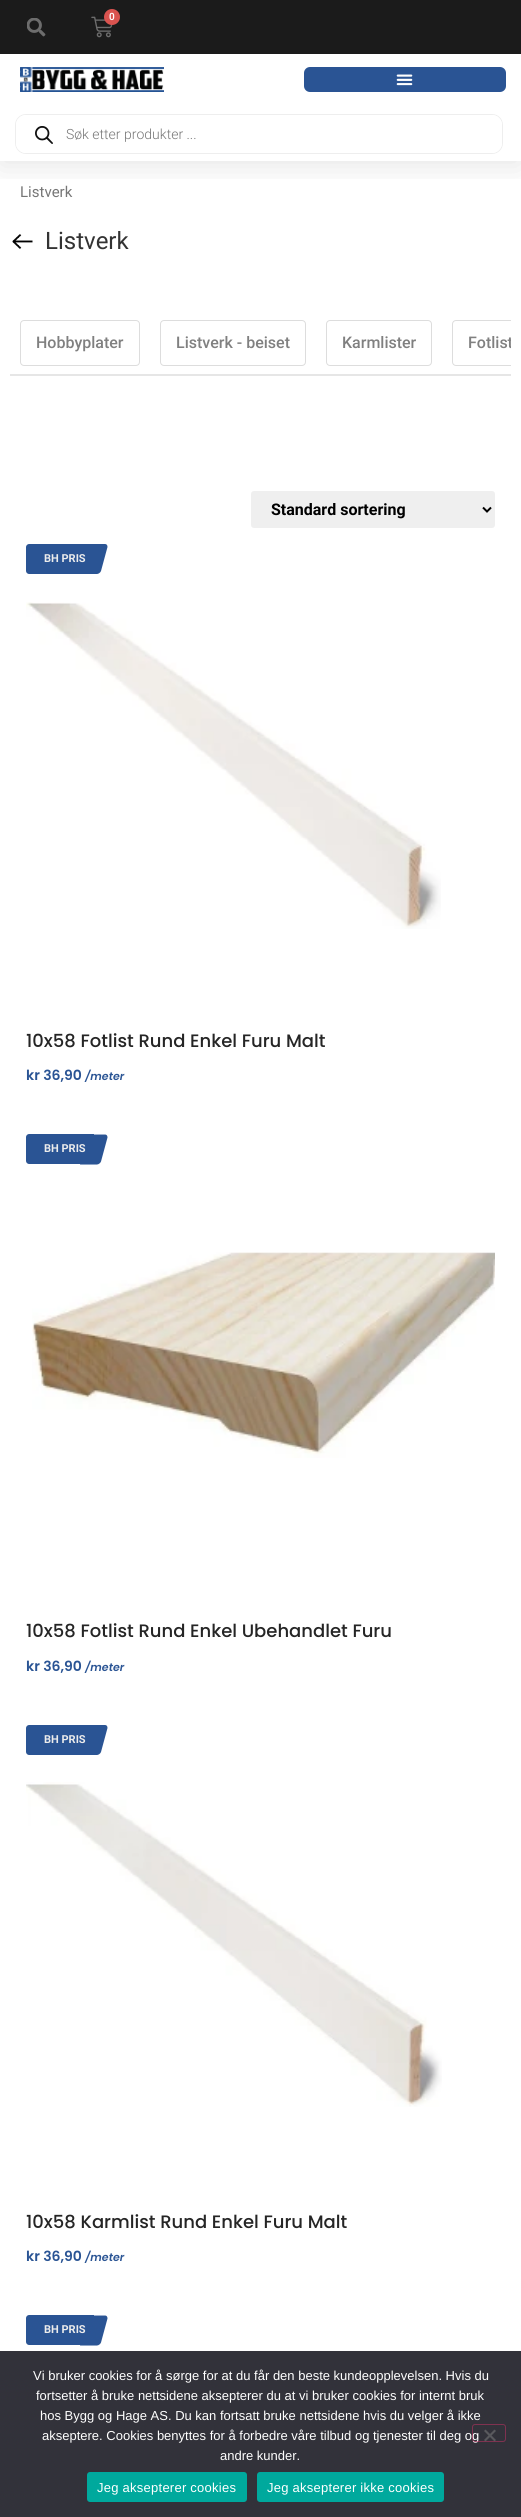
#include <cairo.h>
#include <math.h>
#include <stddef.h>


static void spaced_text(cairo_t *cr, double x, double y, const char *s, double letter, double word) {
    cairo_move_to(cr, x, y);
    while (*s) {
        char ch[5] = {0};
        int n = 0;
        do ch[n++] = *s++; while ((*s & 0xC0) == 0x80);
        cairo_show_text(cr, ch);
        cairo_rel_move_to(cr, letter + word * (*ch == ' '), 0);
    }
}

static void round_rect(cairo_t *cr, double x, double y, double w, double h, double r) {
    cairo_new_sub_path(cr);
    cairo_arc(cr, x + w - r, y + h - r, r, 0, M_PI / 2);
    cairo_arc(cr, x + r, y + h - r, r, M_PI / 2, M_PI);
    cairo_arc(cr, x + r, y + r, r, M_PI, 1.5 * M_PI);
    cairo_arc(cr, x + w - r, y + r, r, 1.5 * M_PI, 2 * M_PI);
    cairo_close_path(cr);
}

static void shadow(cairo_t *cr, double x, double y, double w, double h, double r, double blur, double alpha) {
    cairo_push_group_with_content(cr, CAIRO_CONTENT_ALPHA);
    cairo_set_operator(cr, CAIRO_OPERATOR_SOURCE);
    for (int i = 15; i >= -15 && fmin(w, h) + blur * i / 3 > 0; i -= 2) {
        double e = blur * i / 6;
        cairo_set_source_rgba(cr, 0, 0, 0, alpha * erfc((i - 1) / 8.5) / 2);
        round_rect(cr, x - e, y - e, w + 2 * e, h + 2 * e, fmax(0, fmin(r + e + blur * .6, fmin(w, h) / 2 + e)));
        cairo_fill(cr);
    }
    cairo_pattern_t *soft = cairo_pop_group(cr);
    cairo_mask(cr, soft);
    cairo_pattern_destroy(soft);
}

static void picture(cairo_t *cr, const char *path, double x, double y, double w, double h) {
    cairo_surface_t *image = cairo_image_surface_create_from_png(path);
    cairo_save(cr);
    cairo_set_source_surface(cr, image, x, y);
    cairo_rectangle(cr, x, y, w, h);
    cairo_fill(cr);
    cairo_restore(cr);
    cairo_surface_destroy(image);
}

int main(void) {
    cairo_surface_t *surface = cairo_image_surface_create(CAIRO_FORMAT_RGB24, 521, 2517);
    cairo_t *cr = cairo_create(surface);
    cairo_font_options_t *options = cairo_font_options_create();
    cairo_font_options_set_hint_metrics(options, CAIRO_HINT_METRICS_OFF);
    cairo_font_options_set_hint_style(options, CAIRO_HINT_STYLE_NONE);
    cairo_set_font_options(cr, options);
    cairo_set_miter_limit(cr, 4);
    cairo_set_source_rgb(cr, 1, 1, 1);
    cairo_paint(cr);
    cairo_save(cr);
    cairo_rectangle(cr, 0, 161, 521, 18);
    cairo_clip(cr);
    cairo_set_source_rgb(cr, 0, 0, 0);
    shadow(cr, 0, 5, 521, 161, 0, 15, 0.1);
    cairo_restore(cr);
    cairo_set_source_rgb(cr, 0.106, 0.106, 0.106);
    cairo_rectangle(cr, 0, 0, 521, 54);
    cairo_fill(cr);
    picture(cr, "img1.png", 91, 16, 22, 22);
    cairo_set_source_rgb(cr, 0.851, 0.325, 0.31);
    cairo_arc(cr, 112, 17, 8, 0, 2 * M_PI);
    cairo_fill(cr);
    cairo_select_font_face(cr, "Roboto SemiBold", CAIRO_FONT_SLANT_NORMAL, CAIRO_FONT_WEIGHT_NORMAL);
    cairo_set_font_size(cr, 10);
    cairo_set_source_rgb(cr, 1, 1, 1);
    cairo_move_to(cr, 109, 20);
    cairo_show_text(cr, "0");
    picture(cr, "img2.png", 27, 18, 19, 19);
    picture(cr, "img3.png", 20, 67, 144, 25);
    cairo_set_source_rgb(cr, 0.165, 0.329, 0.58);
    round_rect(cr, 304, 67, 202, 25, 6);
    cairo_fill(cr);
    picture(cr, "img4.png", 396, 74, 17, 12);
    round_rect(cr, 15.5, 114.5, 487, 39, 10.5);
    cairo_set_source_rgb(cr, 0.933, 0.933, 0.933);
    cairo_set_line_width(cr, 1);
    cairo_stroke(cr);
    cairo_set_source_rgb(cr, 1, 1, 1);
    round_rect(cr, 16, 115, 486, 38, 10);
    cairo_fill(cr);
    picture(cr, "img5.png", 35, 126, 18, 18);
    cairo_select_font_face(cr, "Roboto Light", CAIRO_FONT_SLANT_NORMAL, CAIRO_FONT_WEIGHT_NORMAL);
    cairo_set_font_size(cr, 14);
    cairo_set_source_rgb(cr, 0.463, 0.463, 0.463);
    cairo_move_to(cr, 66, 139);
    cairo_show_text(cr, "Søk etter produkter ...");
    cairo_select_font_face(cr, "Roboto", CAIRO_FONT_SLANT_NORMAL, CAIRO_FONT_WEIGHT_NORMAL);
    cairo_set_font_size(cr, 15);
    cairo_move_to(cr, 20, 197);
    cairo_show_text(cr, "Listverk");
    picture(cr, "img6.png", 12, 234, 21, 15);
    cairo_set_font_size(cr, 24);
    cairo_set_source_rgb(cr, 0.2, 0.2, 0.2);
    cairo_move_to(cr, 45, 249);
    cairo_show_text(cr, "Listverk");
    cairo_set_source_rgb(cr, 0.902, 0.902, 0.902);
    cairo_rectangle(cr, 10, 374, 501, 2);
    cairo_fill(cr);
    round_rect(cr, 20.5, 320.5, 119, 45, 3.5);
    cairo_set_source_rgb(cr, 0.867, 0.867, 0.867);
    cairo_stroke(cr);
    cairo_select_font_face(cr, "Roboto Medium", CAIRO_FONT_SLANT_NORMAL, CAIRO_FONT_WEIGHT_NORMAL);
    cairo_set_font_size(cr, 16);
    cairo_set_source_rgb(cr, 0.502, 0.502, 0.502);
    cairo_move_to(cr, 36, 348);
    cairo_show_text(cr, "Hobbyplater");
    round_rect(cr, 160.5, 320.5, 145, 45, 3.5);
    cairo_set_source_rgb(cr, 0.867, 0.867, 0.867);
    cairo_stroke(cr);
    cairo_set_source_rgb(cr, 0.502, 0.502, 0.502);
    cairo_move_to(cr, 176, 348);
    cairo_show_text(cr, "Listverk - beiset");
    round_rect(cr, 326.5, 320.5, 105, 45, 3.5);
    cairo_set_source_rgb(cr, 0.867, 0.867, 0.867);
    cairo_stroke(cr);
    cairo_set_source_rgb(cr, 0.502, 0.502, 0.502);
    cairo_move_to(cr, 342, 348);
    cairo_show_text(cr, "Karmlister");
    cairo_save(cr);
    cairo_rectangle(cr, 10, 310, 501, 66);
    cairo_clip(cr);
    round_rect(cr, 452.5, 320.5, 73, 45, 3.5);
    cairo_set_source_rgb(cr, 0.867, 0.867, 0.867);
    cairo_stroke(cr);
    cairo_set_source_rgb(cr, 0.502, 0.502, 0.502);
    cairo_move_to(cr, 468, 348);
    cairo_show_text(cr, "Fotlist");
    cairo_restore(cr);
    cairo_set_source_rgb(cr, 0.937, 0.937, 0.937);
    round_rect(cr, 251, 491, 244, 37, 3);
    cairo_fill(cr);
    cairo_new_path(cr);
    cairo_move_to(cr, 483, 507.5);
    cairo_line_to(cr, 487, 511.5);
    cairo_line_to(cr, 491, 507.5);
    cairo_set_source_rgb(cr, 0, 0, 0);
    cairo_set_line_width(cr, 2);
    cairo_stroke(cr);
    cairo_select_font_face(cr, "Roboto", CAIRO_FONT_SLANT_NORMAL, CAIRO_FONT_WEIGHT_BOLD);
    cairo_move_to(cr, 271, 515);
    cairo_show_text(cr, "Standard sortering");
    cairo_set_source_rgb(cr, 0.165, 0.329, 0.58);
    cairo_new_path(cr);
    cairo_move_to(cr, 29, 544);
    cairo_line_to(cr, 94, 544);
    cairo_line_to(cr, 94, 574);
    cairo_line_to(cr, 29, 574);
    cairo_curve_to(cr, 27.5, 574, 26, 572.5, 26, 571);
    cairo_line_to(cr, 26, 547);
    cairo_curve_to(cr, 26, 545.5, 27.5, 544, 29, 544);
    cairo_close_path(cr);
    cairo_fill(cr);
    cairo_new_path(cr);
    cairo_move_to(cr, 88, 544);
    cairo_line_to(cr, 105, 544);
    cairo_curve_to(cr, 106.5, 544, 107.5, 545, 107.5, 547);
    cairo_line_to(cr, 101, 571);
    cairo_curve_to(cr, 100.5, 572.5, 98.5, 574, 97, 574);
    cairo_line_to(cr, 80, 574);
    cairo_close_path(cr);
    cairo_fill(cr);
    cairo_set_font_size(cr, 11);
    cairo_set_source_rgb(cr, 0.925, 0.925, 0.925);
    cairo_move_to(cr, 44, 562);
    cairo_show_text(cr, "BH PRIS");
    picture(cr, "img7.png", 26, 602, 415, 327);
    cairo_select_font_face(cr, "Poppins Medium", CAIRO_FONT_SLANT_NORMAL, CAIRO_FONT_WEIGHT_NORMAL);
    cairo_set_font_size(cr, 18);
    cairo_set_source_rgb(cr, 0.145, 0.145, 0.145);
    cairo_move_to(cr, 26, 1047);
    cairo_show_text(cr, "10x58 Fotlist Rund Enkel Furu Malt");
    cairo_select_font_face(cr, "Poppins SemiBold", CAIRO_FONT_SLANT_NORMAL, CAIRO_FONT_WEIGHT_NORMAL);
    cairo_set_font_size(cr, 14);
    cairo_set_source_rgb(cr, 0.165, 0.329, 0.58);
    cairo_move_to(cr, 26, 1080);
    cairo_show_text(cr, "kr 36,90");
    cairo_select_font_face(cr, "Poppins SemiBold", CAIRO_FONT_SLANT_ITALIC, CAIRO_FONT_WEIGHT_NORMAL);
    cairo_set_font_size(cr, 11);
    cairo_move_to(cr, 85, 1080);
    cairo_show_text(cr, "/meter");
    cairo_new_path(cr);
    cairo_move_to(cr, 29, 1134);
    cairo_line_to(cr, 94, 1134);
    cairo_line_to(cr, 94, 1164);
    cairo_line_to(cr, 29, 1164);
    cairo_curve_to(cr, 27.5, 1164, 26, 1162.5, 26, 1161);
    cairo_line_to(cr, 26, 1137);
    cairo_curve_to(cr, 26, 1135.5, 27.5, 1134, 29, 1134);
    cairo_close_path(cr);
    cairo_fill(cr);
    cairo_new_path(cr);
    cairo_move_to(cr, 88, 1134.5);
    cairo_line_to(cr, 105, 1134.5);
    cairo_curve_to(cr, 106.5, 1134.5, 107.5, 1135.5, 107.5, 1137.5);
    cairo_line_to(cr, 101, 1161.5);
    cairo_curve_to(cr, 100.5, 1163, 98.5, 1164.5, 97, 1164.5);
    cairo_line_to(cr, 80, 1164.5);
    cairo_close_path(cr);
    cairo_fill(cr);
    cairo_select_font_face(cr, "Roboto", CAIRO_FONT_SLANT_NORMAL, CAIRO_FONT_WEIGHT_BOLD);
    cairo_set_source_rgb(cr, 0.925, 0.925, 0.925);
    cairo_move_to(cr, 44, 1152);
    cairo_show_text(cr, "BH PRIS");
    picture(cr, "img8.png", 32, 1252, 463, 206);
    cairo_select_font_face(cr, "Poppins Medium", CAIRO_FONT_SLANT_NORMAL, CAIRO_FONT_WEIGHT_NORMAL);
    cairo_set_font_size(cr, 18);
    cairo_set_source_rgb(cr, 0.145, 0.145, 0.145);
    cairo_move_to(cr, 26, 1637);
    cairo_show_text(cr, "10x58 Fotlist Rund Enkel Ubehandlet Furu");
    cairo_select_font_face(cr, "Poppins SemiBold", CAIRO_FONT_SLANT_NORMAL, CAIRO_FONT_WEIGHT_NORMAL);
    cairo_set_font_size(cr, 14);
    cairo_set_source_rgb(cr, 0.165, 0.329, 0.58);
    cairo_move_to(cr, 26, 1671);
    cairo_show_text(cr, "kr 36,90");
    cairo_select_font_face(cr, "Poppins SemiBold", CAIRO_FONT_SLANT_ITALIC, CAIRO_FONT_WEIGHT_NORMAL);
    cairo_set_font_size(cr, 11);
    cairo_move_to(cr, 85, 1671);
    cairo_show_text(cr, "/meter");
    cairo_new_path(cr);
    cairo_move_to(cr, 29, 1725);
    cairo_line_to(cr, 94, 1725);
    cairo_line_to(cr, 94, 1755);
    cairo_line_to(cr, 29, 1755);
    cairo_curve_to(cr, 27.5, 1755, 26, 1753.5, 26, 1752);
    cairo_line_to(cr, 26, 1728);
    cairo_curve_to(cr, 26, 1726.5, 27.5, 1725, 29, 1725);
    cairo_close_path(cr);
    cairo_fill(cr);
    cairo_new_path(cr);
    cairo_move_to(cr, 88, 1725);
    cairo_line_to(cr, 105, 1725);
    cairo_curve_to(cr, 106.5, 1725, 107.5, 1726, 107.5, 1728);
    cairo_line_to(cr, 101, 1752);
    cairo_curve_to(cr, 100.5, 1753.5, 98.5, 1755, 97, 1755);
    cairo_line_to(cr, 80, 1755);
    cairo_close_path(cr);
    cairo_fill(cr);
    cairo_select_font_face(cr, "Roboto", CAIRO_FONT_SLANT_NORMAL, CAIRO_FONT_WEIGHT_BOLD);
    cairo_set_source_rgb(cr, 0.925, 0.925, 0.925);
    cairo_move_to(cr, 44, 1743);
    cairo_show_text(cr, "BH PRIS");
    picture(cr, "img9.png", 26, 1782, 416, 325);
    cairo_select_font_face(cr, "Poppins Medium", CAIRO_FONT_SLANT_NORMAL, CAIRO_FONT_WEIGHT_NORMAL);
    cairo_set_font_size(cr, 18);
    cairo_set_source_rgb(cr, 0.145, 0.145, 0.145);
    cairo_move_to(cr, 26, 2228);
    cairo_show_text(cr, "10x58 Karmlist Rund Enkel Furu Malt");
    cairo_select_font_face(cr, "Poppins SemiBold", CAIRO_FONT_SLANT_NORMAL, CAIRO_FONT_WEIGHT_NORMAL);
    cairo_set_font_size(cr, 14);
    cairo_set_source_rgb(cr, 0.165, 0.329, 0.58);
    cairo_move_to(cr, 26, 2261);
    cairo_show_text(cr, "kr 36,90");
    cairo_select_font_face(cr, "Poppins SemiBold", CAIRO_FONT_SLANT_ITALIC, CAIRO_FONT_WEIGHT_NORMAL);
    cairo_set_font_size(cr, 11);
    cairo_move_to(cr, 85, 2261);
    cairo_show_text(cr, "/meter");
    cairo_new_path(cr);
    cairo_move_to(cr, 29, 2315);
    cairo_line_to(cr, 94, 2315);
    cairo_line_to(cr, 94, 2345);
    cairo_line_to(cr, 29, 2345);
    cairo_curve_to(cr, 27.5, 2345, 26, 2343.5, 26, 2342);
    cairo_line_to(cr, 26, 2318);
    cairo_curve_to(cr, 26, 2316.5, 27.5, 2315, 29, 2315);
    cairo_close_path(cr);
    cairo_fill(cr);
    cairo_new_path(cr);
    cairo_move_to(cr, 88, 2315.5);
    cairo_line_to(cr, 105, 2315.5);
    cairo_curve_to(cr, 106.5, 2315.5, 107.5, 2316.5, 107.5, 2318.5);
    cairo_line_to(cr, 101, 2342.5);
    cairo_curve_to(cr, 100.5, 2344, 98.5, 2345.5, 97, 2345.5);
    cairo_line_to(cr, 80, 2345.5);
    cairo_close_path(cr);
    cairo_fill(cr);
    cairo_select_font_face(cr, "Roboto", CAIRO_FONT_SLANT_NORMAL, CAIRO_FONT_WEIGHT_BOLD);
    cairo_set_source_rgb(cr, 0.925, 0.925, 0.925);
    cairo_move_to(cr, 44, 2333);
    cairo_show_text(cr, "BH PRIS");
    cairo_set_source_rgb(cr, 0.196, 0.196, 0.227);
    cairo_rectangle(cr, 0, 2351, 521, 166);
    cairo_fill(cr);
    cairo_select_font_face(cr, "Liberation Sans", CAIRO_FONT_SLANT_NORMAL, CAIRO_FONT_WEIGHT_NORMAL);
    cairo_set_font_size(cr, 13);
    cairo_set_source_rgb(cr, 1, 1, 1);
    cairo_move_to(cr, 33, 2380);
    cairo_show_text(cr, "Vi bruker cookies for å sørge for at du får den beste kundeopplevelsen. Hvis du");
    cairo_move_to(cr, 36, 2400);
    cairo_show_text(cr, "fortsetter å bruke nettsidene aksepterer du at vi bruker cookies for internt bruk");
    cairo_move_to(cr, 40, 2420);
    cairo_show_text(cr, "hos Bygg og Hage AS. Du kan fortsatt bruke nettsidene hvis du velger å ikke");
    cairo_move_to(cr, 42, 2440);
    cairo_show_text(cr, "akseptere. Cookies benyttes for å forbedre våre tilbud og tjenester til deg og");
    cairo_move_to(cr, 220, 2460);
    cairo_show_text(cr, "andre kunder.");
    round_rect(cr, 472.5, 2424.5, 33, 17, 2.5);
    cairo_set_source_rgba(cr, 0.8, 0.2, 0.4, 0.5);
    cairo_set_line_width(cr, 1);
    cairo_stroke(cr);
    cairo_set_source_rgb(cr, 0.349, 0.349, 0.365);
    cairo_new_path(cr);
    cairo_move_to(cr, 494.5, 2429.5);
    cairo_line_to(cr, 496, 2431);
    cairo_line_to(cr, 485.5, 2441.5);
    cairo_line_to(cr, 484, 2440);
    cairo_close_path(cr);
    cairo_fill(cr);
    cairo_new_path(cr);
    cairo_move_to(cr, 484, 2431);
    cairo_line_to(cr, 485.5, 2429.5);
    cairo_line_to(cr, 496, 2440);
    cairo_line_to(cr, 494.5, 2441.5);
    cairo_close_path(cr);
    cairo_fill(cr);
    cairo_set_source_rgb(cr, 0, 0.663, 0.616);
    round_rect(cr, 87, 2472, 160, 30, 3);
    cairo_fill(cr);
    cairo_set_source_rgb(cr, 1, 1, 1);
    spaced_text(cr, 97, 2492, "Jeg aksepterer cookies", 0.25, 0);
    cairo_set_source_rgb(cr, 0, 0.663, 0.616);
    round_rect(cr, 257, 2472, 187, 30, 3);
    cairo_fill(cr);
    cairo_set_source_rgb(cr, 1, 1, 1);
    spaced_text(cr, 267, 2492, "Jeg aksepterer ikke cookies", 0.25, 0);
    cairo_surface_write_to_png(surface, "page.png");
    cairo_font_options_destroy(options);
    cairo_destroy(cr);
    cairo_surface_destroy(surface);
    return 0;
}
